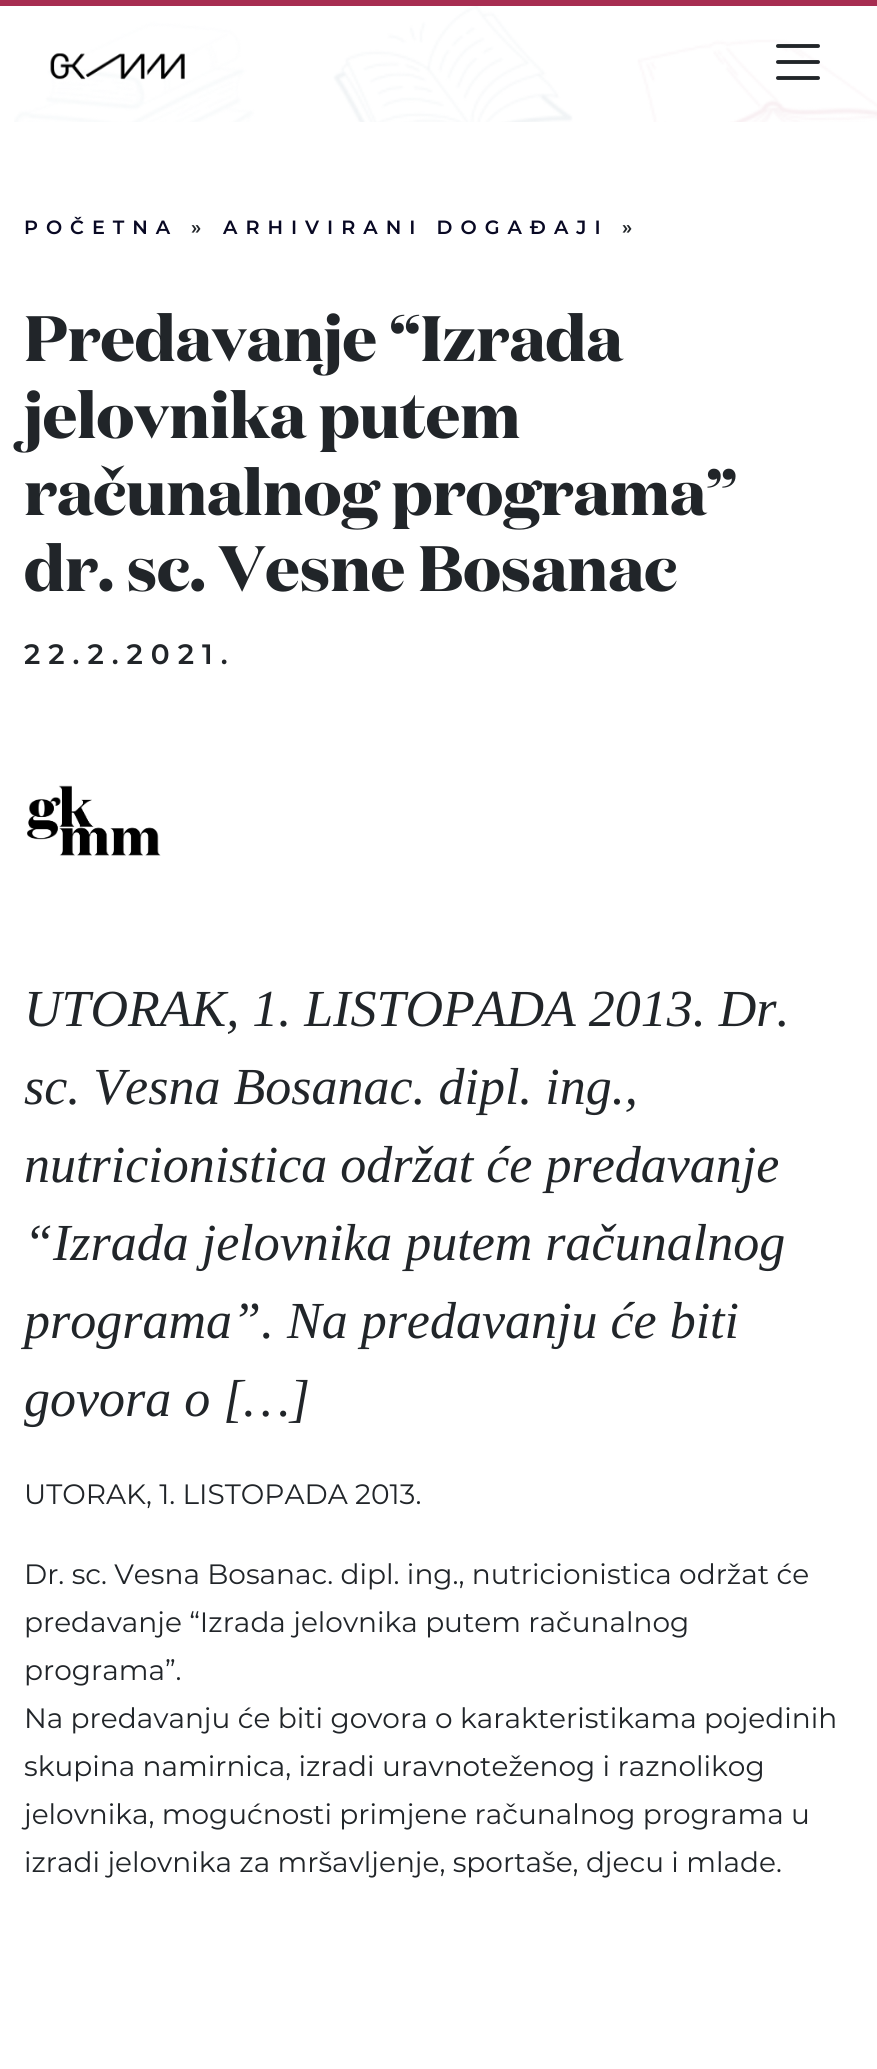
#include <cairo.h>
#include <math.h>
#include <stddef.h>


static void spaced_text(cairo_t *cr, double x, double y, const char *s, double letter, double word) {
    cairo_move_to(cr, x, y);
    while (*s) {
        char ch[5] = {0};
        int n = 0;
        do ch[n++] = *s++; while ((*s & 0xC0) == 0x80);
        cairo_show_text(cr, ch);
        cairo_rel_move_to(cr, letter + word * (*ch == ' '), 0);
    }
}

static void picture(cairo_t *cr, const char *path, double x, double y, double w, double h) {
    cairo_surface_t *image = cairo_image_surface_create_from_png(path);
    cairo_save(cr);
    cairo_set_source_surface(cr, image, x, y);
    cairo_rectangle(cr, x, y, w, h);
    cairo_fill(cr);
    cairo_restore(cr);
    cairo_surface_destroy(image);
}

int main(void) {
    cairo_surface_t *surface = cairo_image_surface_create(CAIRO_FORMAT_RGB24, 877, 2069);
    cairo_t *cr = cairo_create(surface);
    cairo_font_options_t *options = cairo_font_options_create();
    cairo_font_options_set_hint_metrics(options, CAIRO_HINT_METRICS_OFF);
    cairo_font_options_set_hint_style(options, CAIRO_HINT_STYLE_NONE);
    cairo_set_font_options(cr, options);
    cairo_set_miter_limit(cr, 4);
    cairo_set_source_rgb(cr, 1, 1, 1);
    cairo_paint(cr);
    picture(cr, "img1.png", 14, 6, 863, 116);
    cairo_set_source_rgb(cr, 0.655, 0.176, 0.318);
    cairo_rectangle(cr, 0, 0, 877, 6);
    cairo_fill(cr);
    picture(cr, "img2.png", 50, 53, 135, 27);
    picture(cr, "img3.png", 776, 44, 44, 36);
    cairo_select_font_face(cr, "Montserrat SemiBold", CAIRO_FONT_SLANT_NORMAL, CAIRO_FONT_WEIGHT_NORMAL);
    cairo_set_font_size(cr, 19.2);
    cairo_set_source_rgb(cr, 0.039, 0.039, 0.141);
    spaced_text(cr, 24, 234, "POČETNA", 8, 0);
    cairo_set_source_rgb(cr, 0.129, 0.145, 0.161);
    spaced_text(cr, 191, 234, "»", 8, 0);
    cairo_set_source_rgb(cr, 0.039, 0.039, 0.141);
    spaced_text(cr, 223, 234, "ARHIVIRANI DOGAĐAJI", 8, 0);
    cairo_set_source_rgb(cr, 0.129, 0.145, 0.161);
    spaced_text(cr, 622, 234, "»", 8, 0);
    cairo_select_font_face(cr, "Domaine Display", CAIRO_FONT_SLANT_NORMAL, CAIRO_FONT_WEIGHT_BOLD);
    cairo_set_font_size(cr, 64);
    cairo_move_to(cr, 24, 361);
    cairo_show_text(cr, "Predavanje “Izrada");
    cairo_move_to(cr, 24, 438);
    cairo_show_text(cr, "jelovnika putem");
    cairo_move_to(cr, 24, 515);
    cairo_show_text(cr, "računalnog programa”");
    cairo_move_to(cr, 24, 591);
    cairo_show_text(cr, "dr. sc. Vesne Bosanac");
    cairo_select_font_face(cr, "Montserrat SemiBold", CAIRO_FONT_SLANT_NORMAL, CAIRO_FONT_WEIGHT_NORMAL);
    cairo_set_font_size(cr, 28);
    spaced_text(cr, 24, 664, "22.2.2021.", 8, 0);
    picture(cr, "img4.png", 27, 785, 134, 71);
    cairo_select_font_face(cr, "Liberation Serif", CAIRO_FONT_SLANT_ITALIC, CAIRO_FONT_WEIGHT_NORMAL);
    cairo_set_font_size(cr, 52);
    cairo_move_to(cr, 24, 1026);
    cairo_show_text(cr, "UTORAK, 1. LISTOPADA 2013. Dr.");
    cairo_move_to(cr, 24, 1104);
    cairo_show_text(cr, "sc. Vesna Bosanac. dipl. ing.,");
    cairo_move_to(cr, 24, 1182);
    cairo_show_text(cr, "nutricionistica održat će predavanje");
    cairo_move_to(cr, 24, 1260);
    cairo_show_text(cr, "“Izrada jelovnika putem računalnog");
    cairo_move_to(cr, 24, 1338);
    cairo_show_text(cr, "programa”. Na predavanju će biti");
    cairo_move_to(cr, 24, 1416);
    cairo_show_text(cr, "govora o […]");
    cairo_select_font_face(cr, "Montserrat", CAIRO_FONT_SLANT_NORMAL, CAIRO_FONT_WEIGHT_NORMAL);
    cairo_set_font_size(cr, 28);
    cairo_move_to(cr, 24, 1504);
    cairo_show_text(cr, "UTORAK, 1. LISTOPADA 2013.");
    cairo_move_to(cr, 24, 1584);
    cairo_show_text(cr, "Dr. sc. Vesna Bosanac. dipl. ing., nutricionistica održat će");
    cairo_move_to(cr, 24, 1632);
    cairo_show_text(cr, "predavanje “Izrada jelovnika putem računalnog");
    cairo_move_to(cr, 24, 1680);
    cairo_show_text(cr, "programa”.");
    cairo_move_to(cr, 24, 1728);
    cairo_show_text(cr, "Na predavanju će biti govora o karakteristikama pojedinih");
    cairo_move_to(cr, 24, 1776);
    cairo_show_text(cr, "skupina namirnica, izradi uravnoteženog i raznolikog");
    cairo_move_to(cr, 24, 1824);
    cairo_show_text(cr, "jelovnika, mogućnosti primjene računalnog programa u");
    cairo_move_to(cr, 24, 1872);
    cairo_show_text(cr, "izradi jelovnika za mršavljenje, sportaše, djecu i mlade.");
    cairo_surface_write_to_png(surface, "page.png");
    cairo_font_options_destroy(options);
    cairo_destroy(cr);
    cairo_surface_destroy(surface);
    return 0;
}
